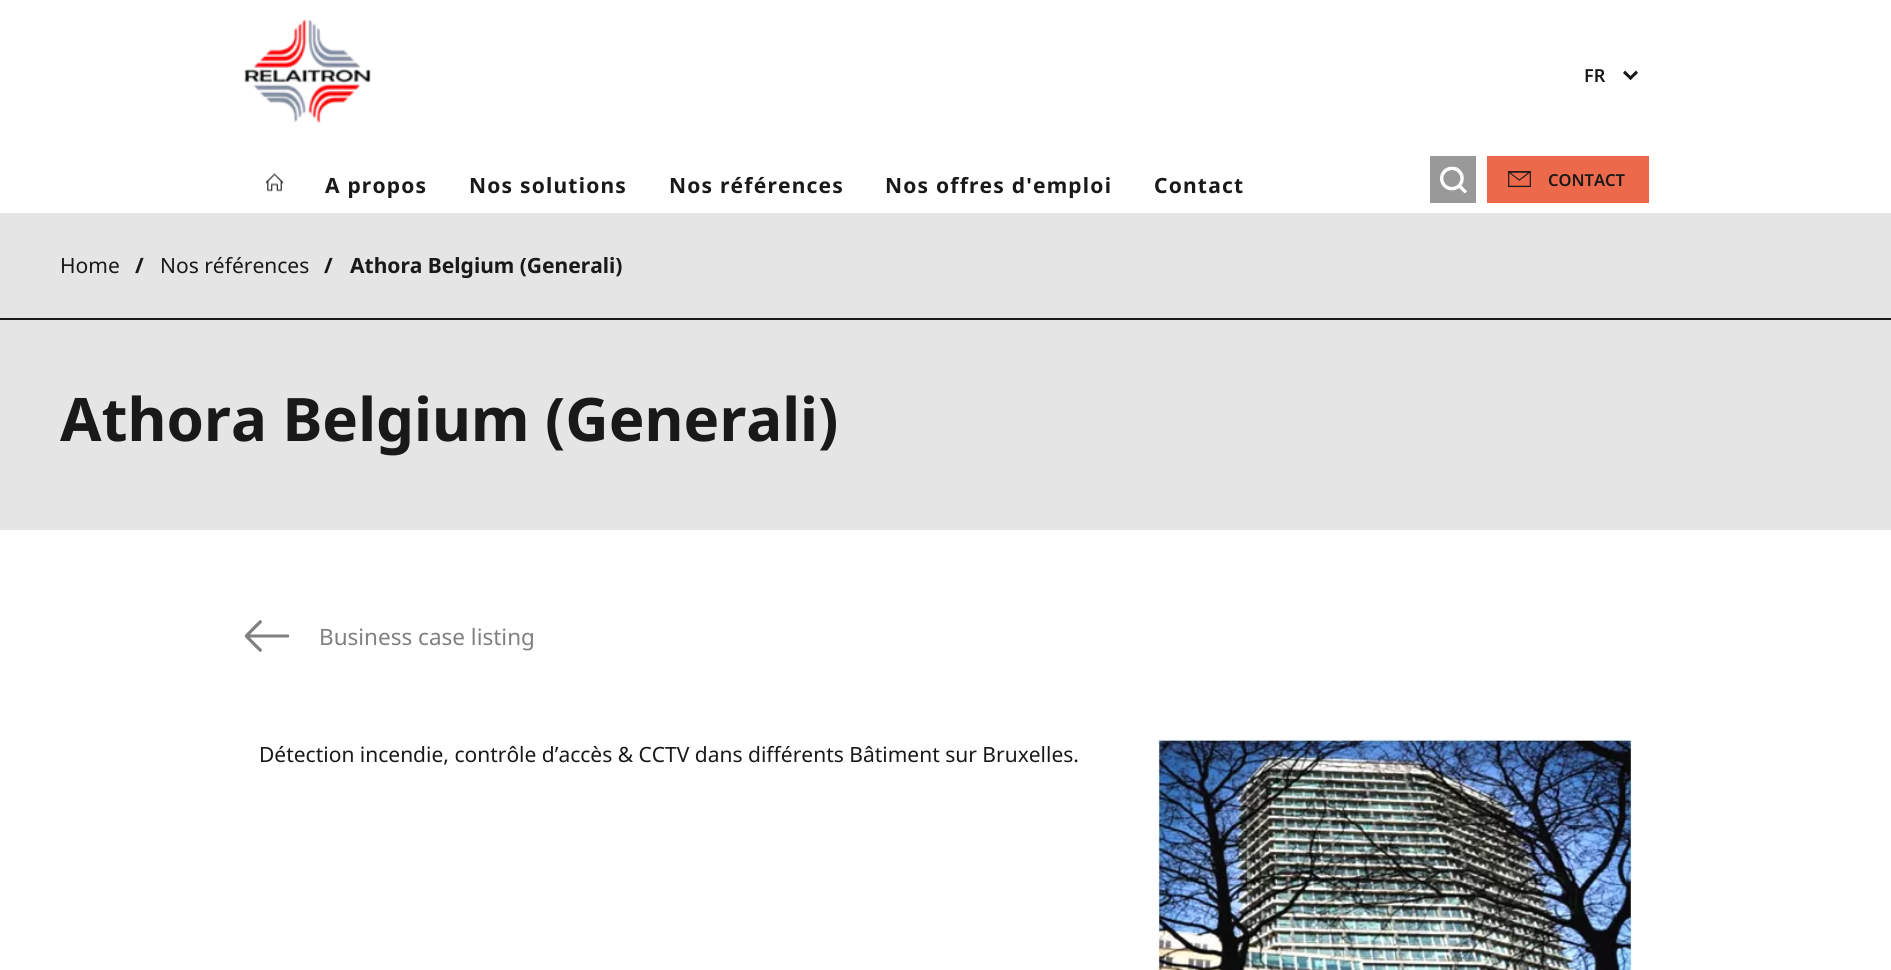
#include <cairo.h>
#include <math.h>
#include <stddef.h>


static void spaced_text(cairo_t *cr, double x, double y, const char *s, double letter, double word) {
    cairo_move_to(cr, x, y);
    while (*s) {
        char ch[5] = {0};
        int n = 0;
        do ch[n++] = *s++; while ((*s & 0xC0) == 0x80);
        cairo_show_text(cr, ch);
        cairo_rel_move_to(cr, letter + word * (*ch == ' '), 0);
    }
}

static void picture(cairo_t *cr, const char *path, double x, double y, double w, double h) {
    cairo_surface_t *image = cairo_image_surface_create_from_png(path);
    cairo_save(cr);
    cairo_set_source_surface(cr, image, x, y);
    cairo_rectangle(cr, x, y, w, h);
    cairo_fill(cr);
    cairo_restore(cr);
    cairo_surface_destroy(image);
}

int main(void) {
    cairo_surface_t *surface = cairo_image_surface_create(CAIRO_FORMAT_RGB24, 1891, 970);
    cairo_t *cr = cairo_create(surface);
    cairo_font_options_t *options = cairo_font_options_create();
    cairo_font_options_set_hint_metrics(options, CAIRO_HINT_METRICS_OFF);
    cairo_font_options_set_hint_style(options, CAIRO_HINT_STYLE_NONE);
    cairo_set_font_options(cr, options);
    cairo_set_miter_limit(cr, 4);
    cairo_set_source_rgb(cr, 1, 1, 1);
    cairo_paint(cr);
    picture(cr, "img1.png", 244, 19, 127, 104);
    cairo_select_font_face(cr, "Noto Sans SemiBold", CAIRO_FONT_SLANT_NORMAL, CAIRO_FONT_WEIGHT_NORMAL);
    cairo_set_font_size(cr, 18);
    cairo_set_source_rgb(cr, 0.098, 0.098, 0.098);
    cairo_move_to(cr, 1584, 82);
    cairo_show_text(cr, "FR");
    cairo_new_path(cr);
    cairo_move_to(cr, 1636, 70.5);
    cairo_line_to(cr, 1638, 73);
    cairo_line_to(cr, 1630.5, 80);
    cairo_line_to(cr, 1628.5, 78);
    cairo_close_path(cr);
    cairo_fill(cr);
    cairo_new_path(cr);
    cairo_move_to(cr, 1625, 70.5);
    cairo_line_to(cr, 1632.5, 78);
    cairo_line_to(cr, 1630.5, 80);
    cairo_line_to(cr, 1623, 73);
    cairo_close_path(cr);
    cairo_fill(cr);
    picture(cr, "img2.png", 265, 173, 19, 19);
    cairo_select_font_face(cr, "Noto Sans", CAIRO_FONT_SLANT_NORMAL, CAIRO_FONT_WEIGHT_BOLD);
    cairo_set_font_size(cr, 21);
    spaced_text(cr, 325, 193, "A propos", 1.2, 0);
    spaced_text(cr, 469, 193, "Nos solutions", 1.2, 0);
    spaced_text(cr, 669, 193, "Nos références", 1.2, 0);
    spaced_text(cr, 885, 193, "Nos offres d'emploi", 1.2, 0);
    spaced_text(cr, 1154, 193, "Contact", 1.2, 0);
    cairo_set_source_rgb(cr, 0.6, 0.6, 0.6);
    cairo_rectangle(cr, 1430, 156, 46, 47);
    cairo_fill(cr);
    picture(cr, "img3.png", 1440, 166, 27, 28);
    cairo_set_source_rgb(cr, 0.929, 0.412, 0.294);
    cairo_rectangle(cr, 1487, 156, 162, 47);
    cairo_fill(cr);
    picture(cr, "img4.png", 1507, 171, 25, 16);
    cairo_select_font_face(cr, "Noto Sans SemiBold", CAIRO_FONT_SLANT_NORMAL, CAIRO_FONT_WEIGHT_NORMAL);
    cairo_set_font_size(cr, 16.5);
    cairo_set_source_rgb(cr, 0.098, 0.098, 0.098);
    cairo_move_to(cr, 1548, 186);
    cairo_show_text(cr, "CONTACT");
    cairo_set_source_rgb(cr, 0.898, 0.898, 0.898);
    cairo_rectangle(cr, 0, 213, 1891, 317);
    cairo_fill(cr);
    cairo_select_font_face(cr, "Noto Sans", CAIRO_FONT_SLANT_NORMAL, CAIRO_FONT_WEIGHT_NORMAL);
    cairo_set_font_size(cr, 21);
    cairo_set_source_rgb(cr, 0.098, 0.098, 0.098);
    cairo_move_to(cr, 60, 273);
    cairo_show_text(cr, "Home");
    cairo_select_font_face(cr, "Noto Sans", CAIRO_FONT_SLANT_NORMAL, CAIRO_FONT_WEIGHT_BOLD);
    cairo_move_to(cr, 135, 273);
    cairo_show_text(cr, "/");
    cairo_select_font_face(cr, "Noto Sans", CAIRO_FONT_SLANT_NORMAL, CAIRO_FONT_WEIGHT_NORMAL);
    cairo_move_to(cr, 160, 273);
    cairo_show_text(cr, "Nos références");
    cairo_select_font_face(cr, "Noto Sans", CAIRO_FONT_SLANT_NORMAL, CAIRO_FONT_WEIGHT_BOLD);
    cairo_move_to(cr, 324, 273);
    cairo_show_text(cr, "/");
    cairo_move_to(cr, 350, 273);
    cairo_show_text(cr, "Athora Belgium (Generali)");
    cairo_rectangle(cr, 0, 318, 1891, 2);
    cairo_fill(cr);
    cairo_set_font_size(cr, 60);
    cairo_move_to(cr, 60, 441);
    cairo_show_text(cr, "Athora Belgium (Generali)");
    picture(cr, "img5.png", 244, 620, 46, 32);
    cairo_select_font_face(cr, "Noto Sans", CAIRO_FONT_SLANT_NORMAL, CAIRO_FONT_WEIGHT_NORMAL);
    cairo_set_font_size(cr, 22.5);
    cairo_set_source_rgb(cr, 0.502, 0.502, 0.502);
    cairo_move_to(cr, 319, 645);
    cairo_show_text(cr, "Business case listing");
    cairo_set_font_size(cr, 21);
    cairo_set_source_rgb(cr, 0.098, 0.098, 0.098);
    cairo_move_to(cr, 259, 762);
    cairo_show_text(cr, "Détection incendie, contrôle d’accès & CCTV dans différents Bâtiment sur Bruxelles.");
    picture(cr, "img6.png", 1158, 739, 474, 231);
    cairo_surface_write_to_png(surface, "page.png");
    cairo_font_options_destroy(options);
    cairo_destroy(cr);
    cairo_surface_destroy(surface);
    return 0;
}
